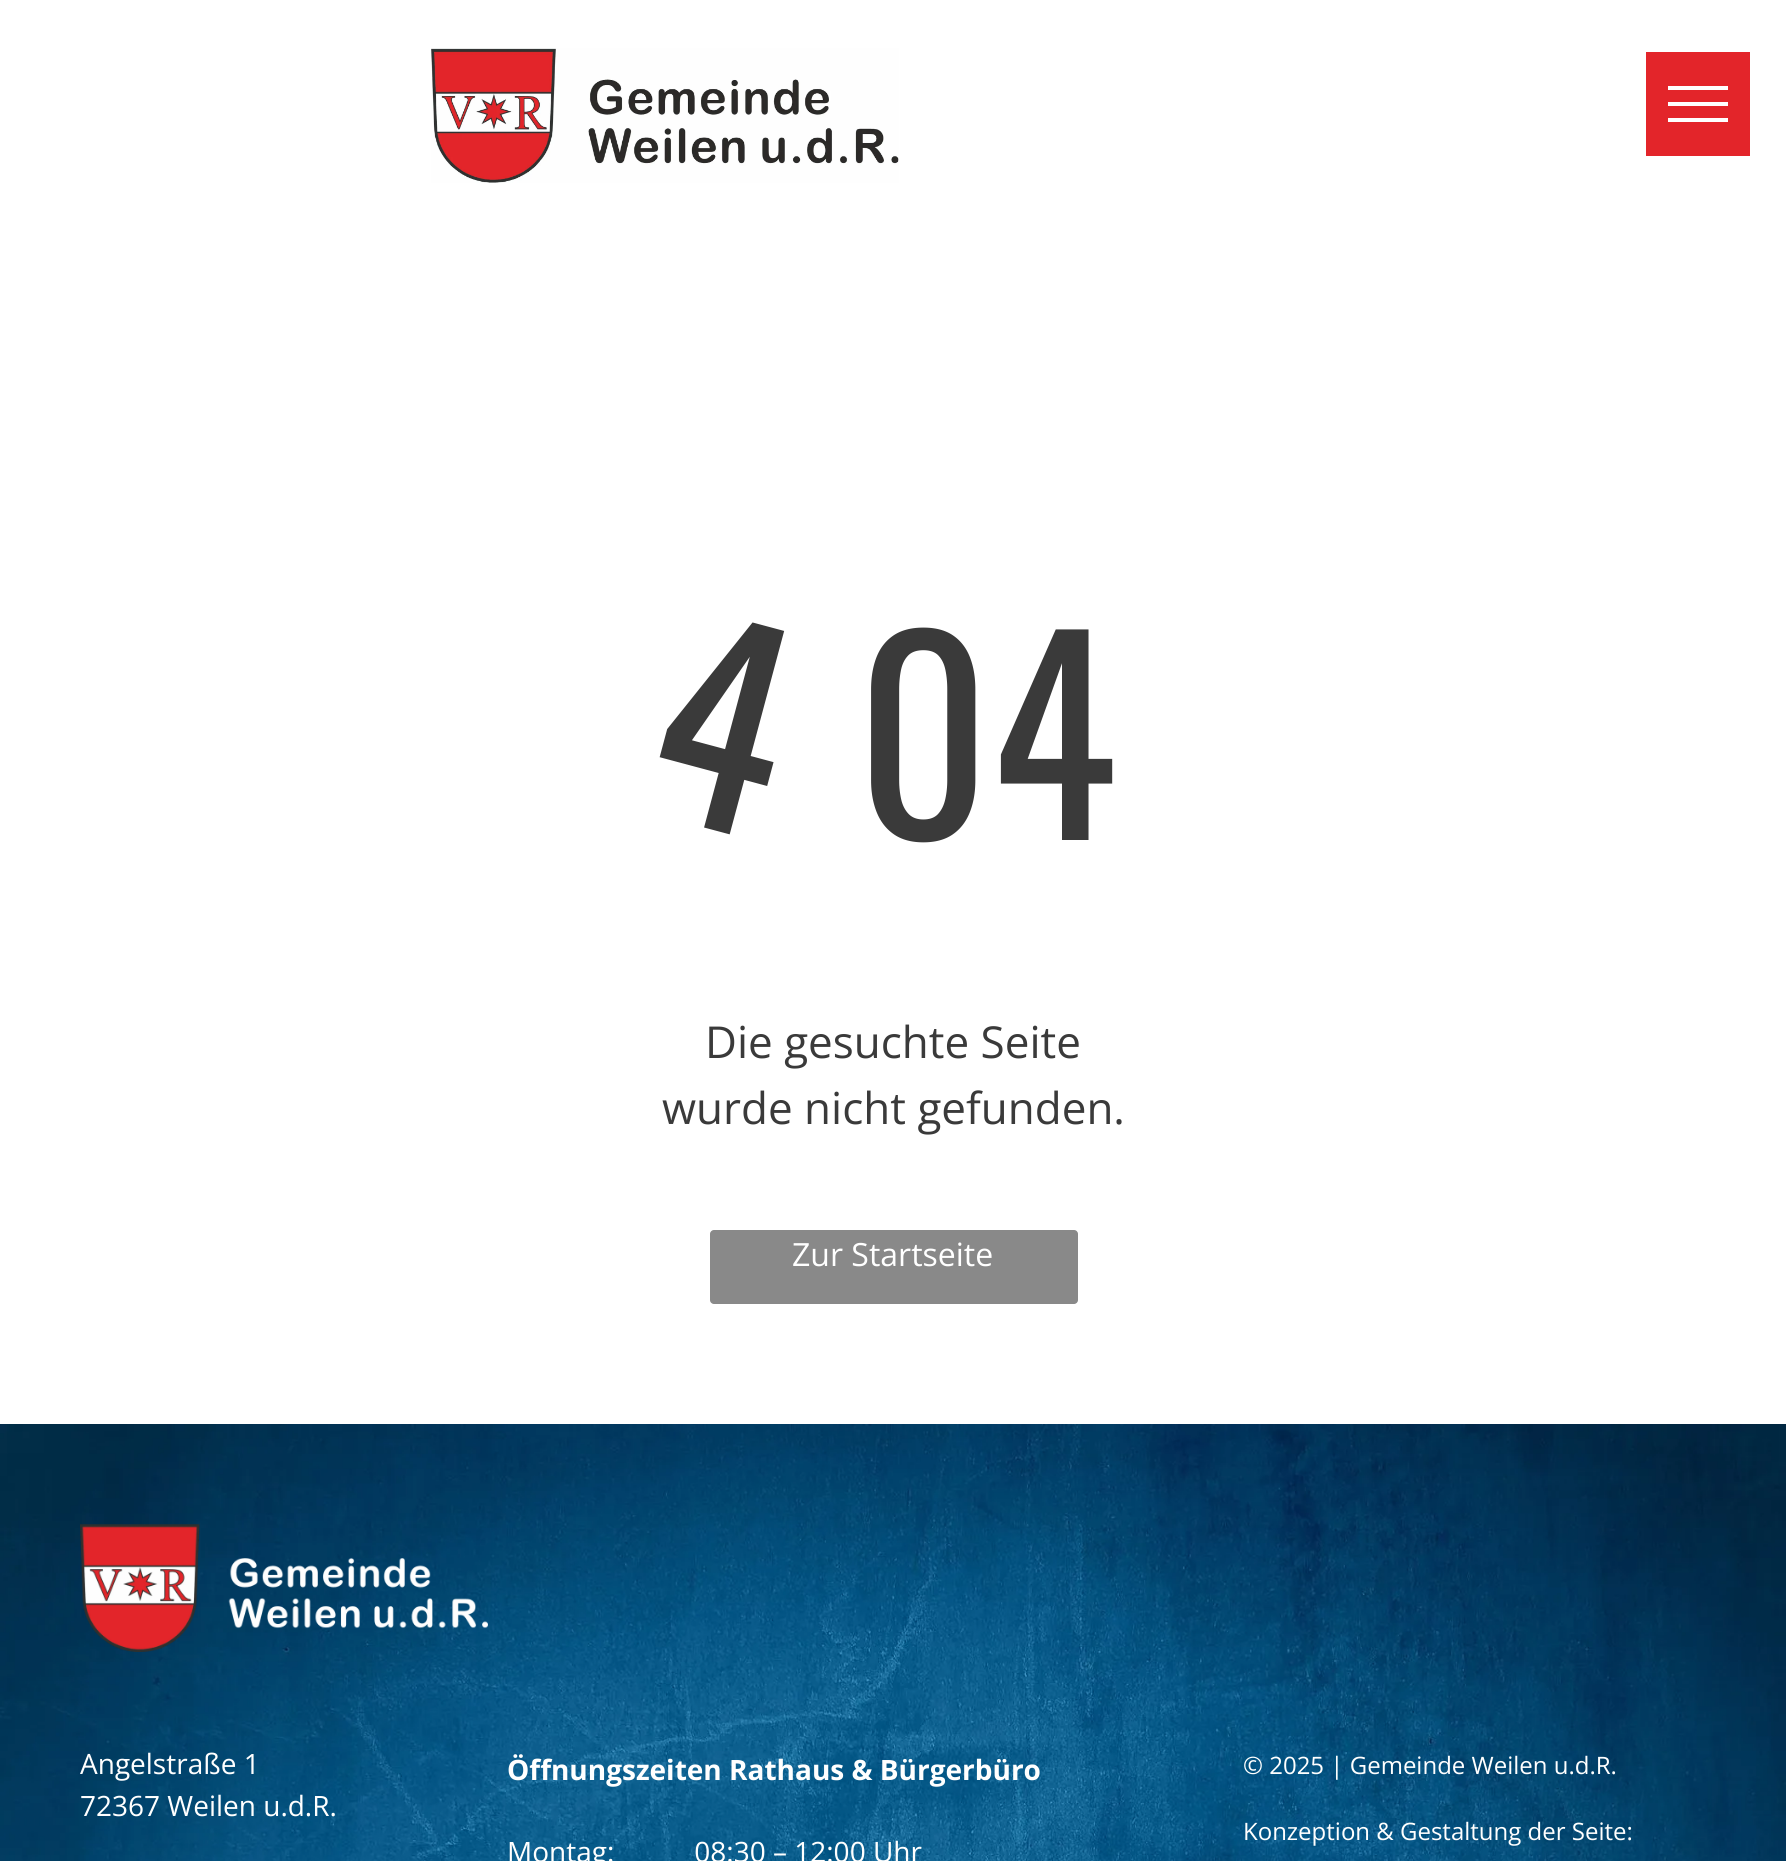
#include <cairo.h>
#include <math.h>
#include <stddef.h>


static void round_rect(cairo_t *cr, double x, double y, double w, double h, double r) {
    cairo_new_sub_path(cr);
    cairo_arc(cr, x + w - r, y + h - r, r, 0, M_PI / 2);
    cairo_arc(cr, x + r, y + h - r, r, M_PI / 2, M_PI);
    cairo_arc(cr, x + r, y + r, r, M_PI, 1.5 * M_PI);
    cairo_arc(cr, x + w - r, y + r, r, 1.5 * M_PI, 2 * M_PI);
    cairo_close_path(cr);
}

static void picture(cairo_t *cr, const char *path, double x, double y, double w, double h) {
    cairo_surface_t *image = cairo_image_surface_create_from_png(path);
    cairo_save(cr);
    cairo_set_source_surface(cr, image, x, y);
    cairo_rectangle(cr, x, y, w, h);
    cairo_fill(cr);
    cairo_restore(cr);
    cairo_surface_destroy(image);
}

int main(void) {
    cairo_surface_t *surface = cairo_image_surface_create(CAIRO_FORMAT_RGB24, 1786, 1861);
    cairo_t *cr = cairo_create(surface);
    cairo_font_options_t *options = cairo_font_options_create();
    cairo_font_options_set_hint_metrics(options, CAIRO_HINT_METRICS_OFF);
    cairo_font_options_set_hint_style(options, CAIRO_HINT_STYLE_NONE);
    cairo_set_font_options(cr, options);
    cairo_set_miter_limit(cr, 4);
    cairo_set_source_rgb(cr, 1, 1, 1);
    cairo_paint(cr);
    picture(cr, "img1.png", 431, 48, 468, 135);
    cairo_set_source_rgb(cr, 0.89, 0.145, 0.165);
    cairo_rectangle(cr, 1646, 52, 104, 104);
    cairo_fill(cr);
    cairo_set_source_rgb(cr, 1, 1, 1);
    cairo_rectangle(cr, 1668, 86, 60, 4);
    cairo_fill(cr);
    cairo_rectangle(cr, 1668, 102, 60, 4);
    cairo_fill(cr);
    cairo_rectangle(cr, 1668, 118, 60, 4);
    cairo_fill(cr);
    cairo_select_font_face(cr, "Oswald", CAIRO_FONT_SLANT_NORMAL, CAIRO_FONT_WEIGHT_NORMAL);
    cairo_set_font_size(cr, 260);
    cairo_set_source_rgb(cr, 0.227, 0.227, 0.227);
    cairo_save(cr);
    cairo_translate(cr, 635, 809);
    cairo_rotate(cr, 15 * M_PI / 180);
    cairo_move_to(cr, 0, 0);
    cairo_show_text(cr, "4");
    cairo_restore(cr);
    cairo_move_to(cr, 856, 840);
    cairo_show_text(cr, "04");
    cairo_select_font_face(cr, "Open Sans", CAIRO_FONT_SLANT_NORMAL, CAIRO_FONT_WEIGHT_NORMAL);
    cairo_set_font_size(cr, 44);
    cairo_move_to(cr, 705, 1058);
    cairo_show_text(cr, "Die gesuchte Seite");
    cairo_move_to(cr, 662, 1124);
    cairo_show_text(cr, "wurde nicht gefunden.");
    cairo_set_source_rgb(cr, 0.537, 0.537, 0.537);
    round_rect(cr, 710, 1230, 368, 74, 4);
    cairo_fill(cr);
    cairo_set_font_size(cr, 32);
    cairo_set_source_rgb(cr, 1, 1, 1);
    cairo_move_to(cr, 792, 1266);
    cairo_show_text(cr, "Zur Startseite");
    picture(cr, "img2.png", 0, 1424, 1786, 437);
    picture(cr, "img3.png", 80, 1524, 408, 128);
    cairo_set_font_size(cr, 28);
    cairo_move_to(cr, 80, 1774);
    cairo_show_text(cr, "Angelstraße 1");
    cairo_move_to(cr, 80, 1816);
    cairo_show_text(cr, "72367 Weilen u.d.R.");
    cairo_select_font_face(cr, "Open Sans", CAIRO_FONT_SLANT_NORMAL, CAIRO_FONT_WEIGHT_BOLD);
    cairo_move_to(cr, 507, 1780);
    cairo_show_text(cr, "Öffnungszeiten Rathaus & Bürgerbüro");
    cairo_select_font_face(cr, "Open Sans", CAIRO_FONT_SLANT_NORMAL, CAIRO_FONT_WEIGHT_NORMAL);
    cairo_move_to(cr, 507, 1862);
    cairo_show_text(cr, "Montag:           08:30 – 12:00 Uhr");
    cairo_set_font_size(cr, 24);
    cairo_move_to(cr, 1243, 1774);
    cairo_show_text(cr, "© 2025 | Gemeinde Weilen u.d.R.");
    cairo_move_to(cr, 1243, 1840);
    cairo_show_text(cr, "Konzeption & Gestaltung der Seite:");
    cairo_surface_write_to_png(surface, "page.png");
    cairo_font_options_destroy(options);
    cairo_destroy(cr);
    cairo_surface_destroy(surface);
    return 0;
}
